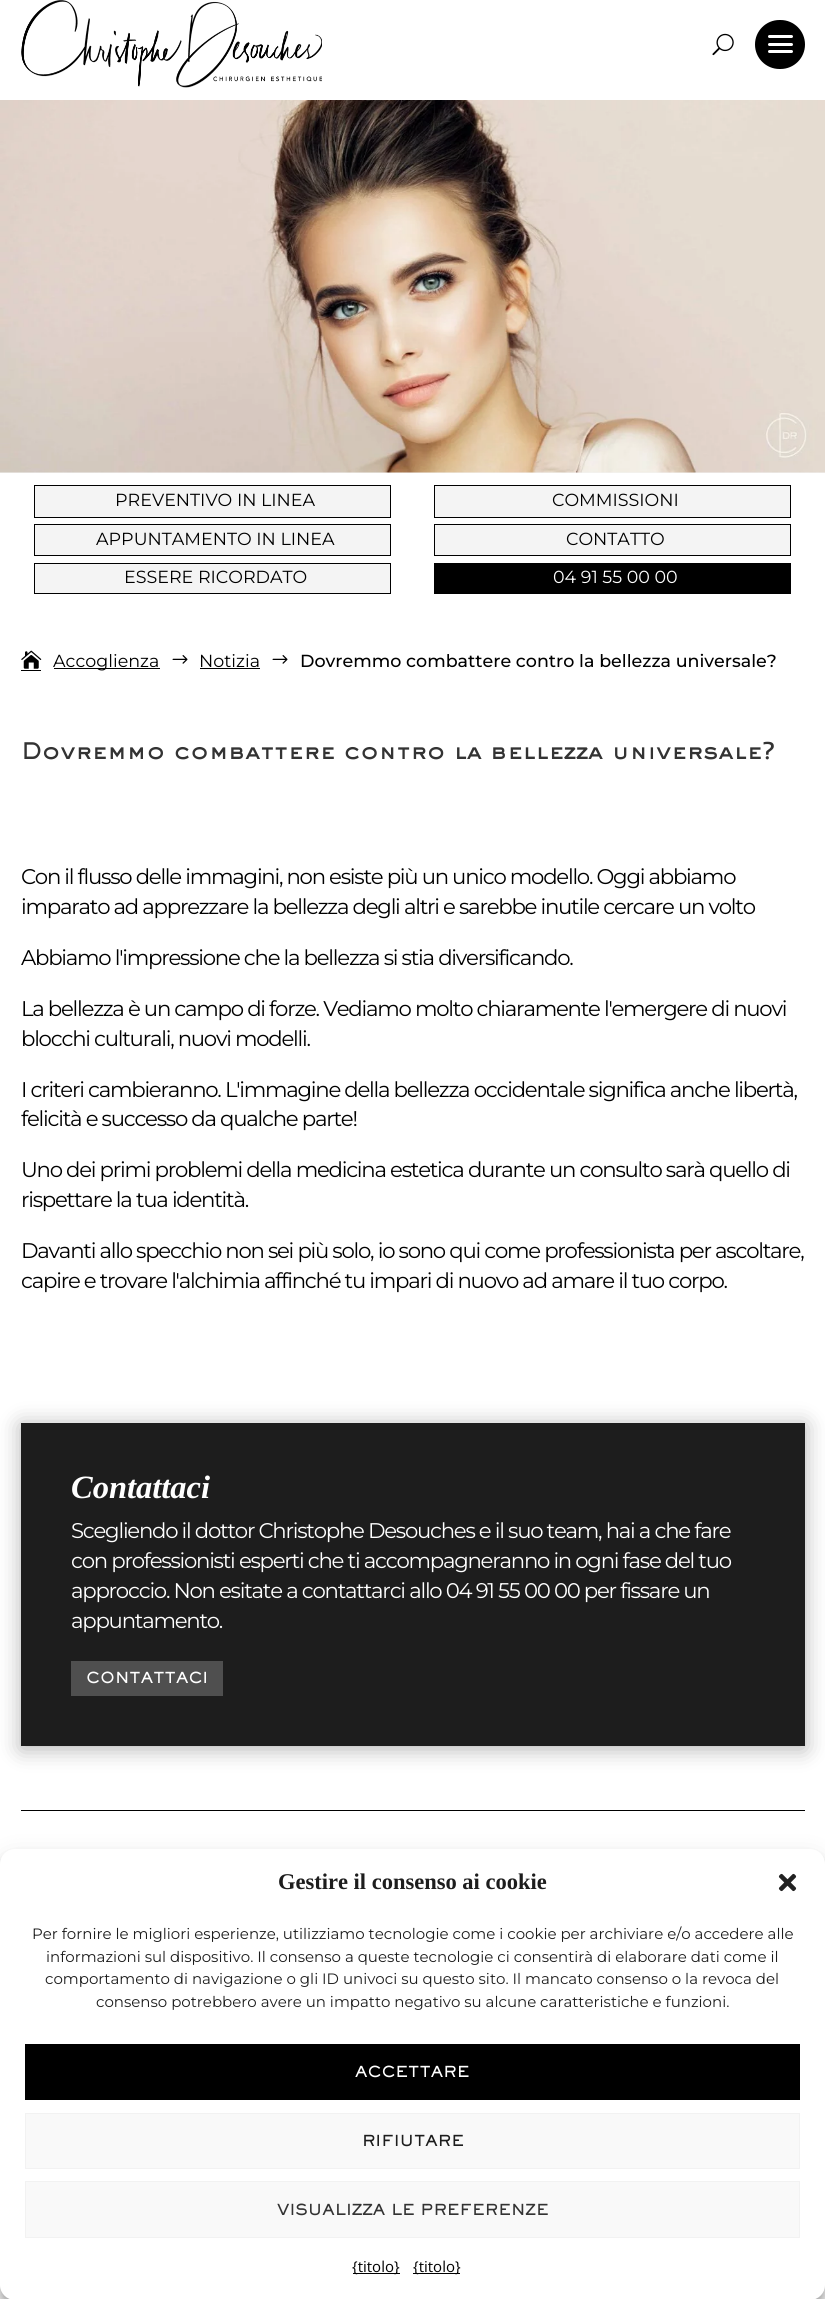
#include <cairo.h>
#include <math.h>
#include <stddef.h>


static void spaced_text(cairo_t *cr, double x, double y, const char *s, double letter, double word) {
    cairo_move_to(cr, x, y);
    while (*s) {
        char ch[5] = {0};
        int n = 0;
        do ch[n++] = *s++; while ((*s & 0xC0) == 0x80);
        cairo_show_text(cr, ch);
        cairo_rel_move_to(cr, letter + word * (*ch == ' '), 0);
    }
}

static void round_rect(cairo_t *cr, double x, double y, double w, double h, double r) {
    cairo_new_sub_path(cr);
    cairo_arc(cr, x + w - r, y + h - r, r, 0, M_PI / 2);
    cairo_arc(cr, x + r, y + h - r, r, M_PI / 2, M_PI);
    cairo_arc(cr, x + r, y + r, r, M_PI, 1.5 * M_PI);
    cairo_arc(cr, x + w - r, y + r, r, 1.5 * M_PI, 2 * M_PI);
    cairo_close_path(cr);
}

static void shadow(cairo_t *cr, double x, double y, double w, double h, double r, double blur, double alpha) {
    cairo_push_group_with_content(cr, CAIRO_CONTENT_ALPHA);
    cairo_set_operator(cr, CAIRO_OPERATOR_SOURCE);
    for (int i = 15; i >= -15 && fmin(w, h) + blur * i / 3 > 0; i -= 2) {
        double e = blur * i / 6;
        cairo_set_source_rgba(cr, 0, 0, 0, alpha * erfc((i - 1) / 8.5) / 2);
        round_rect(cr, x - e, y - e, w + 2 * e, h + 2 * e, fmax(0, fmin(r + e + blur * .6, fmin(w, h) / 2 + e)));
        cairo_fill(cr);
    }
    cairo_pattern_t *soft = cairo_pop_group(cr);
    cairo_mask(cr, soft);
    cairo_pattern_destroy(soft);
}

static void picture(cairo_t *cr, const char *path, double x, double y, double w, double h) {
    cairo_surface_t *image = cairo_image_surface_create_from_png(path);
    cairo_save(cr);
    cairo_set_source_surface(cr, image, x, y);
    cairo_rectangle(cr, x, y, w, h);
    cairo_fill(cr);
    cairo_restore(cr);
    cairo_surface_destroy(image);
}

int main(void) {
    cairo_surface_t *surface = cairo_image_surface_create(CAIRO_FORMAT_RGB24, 825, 2299);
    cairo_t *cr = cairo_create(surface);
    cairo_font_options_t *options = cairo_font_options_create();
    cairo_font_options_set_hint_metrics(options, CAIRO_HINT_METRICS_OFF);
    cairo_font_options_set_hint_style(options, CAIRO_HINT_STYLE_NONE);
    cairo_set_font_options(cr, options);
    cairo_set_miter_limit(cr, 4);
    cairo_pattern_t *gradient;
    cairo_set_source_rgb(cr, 1, 1, 1);
    cairo_paint(cr);
    picture(cr, "img1.png", 21, 0, 301, 88);
    picture(cr, "img2.png", 712, 33, 22, 23);
    cairo_set_source_rgb(cr, 0, 0, 0);
    round_rect(cr, 755, 20, 50, 49, 24.5);
    cairo_fill(cr);
    cairo_set_source_rgb(cr, 1, 1, 1);
    round_rect(cr, 768, 35, 25, 3, 1.5);
    cairo_fill(cr);
    round_rect(cr, 768, 43, 25, 3, 1.5);
    cairo_fill(cr);
    round_rect(cr, 768, 50, 25, 3, 1.5);
    cairo_fill(cr);
    gradient = cairo_pattern_create_linear(413, 87, 413, 473);
    cairo_pattern_add_color_stop_rgba(gradient, 0, 1, 1, 1, 1);
    cairo_pattern_add_color_stop_rgba(gradient, 1, 0.957, 0.957, 0.957, 1);
    cairo_set_source(cr, gradient);
    cairo_pattern_destroy(gradient);
    cairo_rectangle(cr, 0, 175, 825, 298);
    cairo_fill(cr);
    picture(cr, "img3.png", 0, 100, 825, 373);
    cairo_set_source_rgb(cr, 0.957, 0.957, 0.957);
    cairo_rectangle(cr, 34.5, 485.5, 356, 32);
    cairo_fill_preserve(cr);
    cairo_set_source_rgb(cr, 0, 0, 0);
    cairo_set_line_width(cr, 1);
    cairo_stroke(cr);
    cairo_select_font_face(cr, "Montserrat Thin", CAIRO_FONT_SLANT_NORMAL, CAIRO_FONT_WEIGHT_NORMAL);
    cairo_set_font_size(cr, 17.5);
    cairo_move_to(cr, 115, 506);
    cairo_show_text(cr, "PREVENTIVO IN LINEA");
    cairo_set_source_rgb(cr, 0.957, 0.957, 0.957);
    cairo_rectangle(cr, 34.5, 524.5, 356, 31);
    cairo_fill_preserve(cr);
    cairo_set_source_rgb(cr, 0, 0, 0);
    cairo_stroke(cr);
    cairo_move_to(cr, 96, 545);
    cairo_show_text(cr, "APPUNTAMENTO IN LINEA");
    cairo_set_source_rgb(cr, 0.957, 0.957, 0.957);
    cairo_rectangle(cr, 34.5, 563.5, 356, 30);
    cairo_fill_preserve(cr);
    cairo_set_source_rgb(cr, 0, 0, 0);
    cairo_stroke(cr);
    cairo_move_to(cr, 124, 583);
    cairo_show_text(cr, "ESSERE RICORDATO");
    cairo_set_source_rgb(cr, 0.957, 0.957, 0.957);
    cairo_rectangle(cr, 434.5, 485.5, 356, 32);
    cairo_fill_preserve(cr);
    cairo_set_source_rgb(cr, 0, 0, 0);
    cairo_stroke(cr);
    cairo_move_to(cr, 552, 506);
    cairo_show_text(cr, "COMMISSIONI");
    cairo_set_source_rgb(cr, 0.957, 0.957, 0.957);
    cairo_rectangle(cr, 434.5, 524.5, 356, 31);
    cairo_fill_preserve(cr);
    cairo_set_source_rgb(cr, 0, 0, 0);
    cairo_stroke(cr);
    cairo_move_to(cr, 566, 545);
    cairo_show_text(cr, "CONTATTO");
    cairo_rectangle(cr, 434, 563, 357, 31);
    cairo_fill(cr);
    cairo_set_source_rgb(cr, 1, 1, 1);
    cairo_move_to(cr, 553, 583);
    cairo_show_text(cr, "04 91 55 00 00");
    cairo_set_source_rgb(cr, 0, 0, 0);
    cairo_rectangle(cr, 21, 670, 20, 1);
    cairo_fill(cr);
    picture(cr, "img4.png", 21, 650, 21, 19);
    cairo_rectangle(cr, 54, 668, 106, 1);
    cairo_fill(cr);
    cairo_move_to(cr, 53, 667);
    cairo_show_text(cr, "Accoglienza");
    picture(cr, "img5.png", 172, 655, 16, 9);
    cairo_move_to(cr, 199, 667);
    cairo_show_text(cr, "Notizia");
    cairo_rectangle(cr, 200, 668, 60, 1);
    cairo_fill(cr);
    picture(cr, "img5.png", 272, 655, 16, 9);
    cairo_select_font_face(cr, "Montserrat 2 Thin", CAIRO_FONT_SLANT_NORMAL, CAIRO_FONT_WEIGHT_NORMAL);
    cairo_move_to(cr, 300, 667);
    cairo_show_text(cr, "Dovremmo combattere contro la bellezza universale?");
    cairo_select_font_face(cr, "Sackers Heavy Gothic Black", CAIRO_FONT_SLANT_NORMAL, CAIRO_FONT_WEIGHT_NORMAL);
    cairo_set_font_size(cr, 22.5);
    cairo_set_source_rgb(cr, 0.2, 0.2, 0.2);
    cairo_move_to(cr, 21, 759);
    cairo_show_text(cr, "Dovremmo combattere contro la bellezza universale?");
    cairo_select_font_face(cr, "Montserrat Thin", CAIRO_FONT_SLANT_NORMAL, CAIRO_FONT_WEIGHT_NORMAL);
    cairo_set_font_size(cr, 21.25);
    cairo_set_source_rgb(cr, 0, 0, 0);
    spaced_text(cr, 21, 884, "Con il flusso delle immagini, non esiste più un unico modello. Oggi abbiamo", -1.25, 0);
    spaced_text(cr, 21, 914, "imparato ad apprezzare la bellezza degli altri e sarebbe inutile cercare un volto", -1.25, 0);
    spaced_text(cr, 21, 965, "Abbiamo l'impressione che la bellezza si stia diversificando.", -1.25, 0);
    spaced_text(cr, 21, 1016, "La bellezza è un campo di forze. Vediamo molto chiaramente l'emergere di nuovi", -1.25, 0);
    spaced_text(cr, 21, 1046, "blocchi culturali, nuovi modelli.", -1.25, 0);
    spaced_text(cr, 21, 1097, "I criteri cambieranno. L'immagine della bellezza occidentale significa anche libertà,", -1.25, 0);
    spaced_text(cr, 21, 1126, "felicità e successo da qualche parte!", -1.25, 0);
    spaced_text(cr, 21, 1177, "Uno dei primi problemi della medicina estetica durante un consulto sarà quello di", -1.25, 0);
    spaced_text(cr, 21, 1207, "rispettare la tua identità.", -1.25, 0);
    spaced_text(cr, 21, 1258, "Davanti allo specchio non sei più solo, io sono qui come professionista per ascoltare,", -1.25, 0);
    spaced_text(cr, 21, 1288, "capire e trovare l'alchimia affinché tu impari di nuovo ad amare il tuo corpo.", -1.25, 0);
    cairo_set_source_rgb(cr, 0, 0, 0);
    shadow(cr, 21, 1425, 784, 324, 0, 11, 0.3);
    cairo_set_source_rgb(cr, 0.114, 0.114, 0.114);
    cairo_rectangle(cr, 21, 1423, 784, 323);
    cairo_fill(cr);
    cairo_select_font_face(cr, "Liberation Serif", CAIRO_FONT_SLANT_ITALIC, CAIRO_FONT_WEIGHT_BOLD);
    cairo_set_font_size(cr, 32.5);
    cairo_set_source_rgb(cr, 1, 1, 1);
    cairo_move_to(cr, 71, 1498);
    cairo_show_text(cr, "Contattaci");
    cairo_select_font_face(cr, "Montserrat Thin", CAIRO_FONT_SLANT_NORMAL, CAIRO_FONT_WEIGHT_NORMAL);
    cairo_set_font_size(cr, 21.25);
    spaced_text(cr, 71, 1538, "Scegliendo il dottor Christophe Desouches e il suo team, hai a che fare", -1.25, 0);
    spaced_text(cr, 71, 1568, "con professionisti esperti che ti accompagneranno in ogni fase del tuo", -1.25, 0);
    spaced_text(cr, 71, 1598, "approccio. Non esitate a contattarci allo 04 91 55 00 00 per fissare un", -1.25, 0);
    spaced_text(cr, 71, 1628, "appuntamento.", -1.25, 0);
    cairo_set_source_rgb(cr, 0.31, 0.31, 0.31);
    cairo_rectangle(cr, 71, 1661, 152, 35);
    cairo_fill(cr);
    cairo_select_font_face(cr, "Sackers Heavy Gothic Black", CAIRO_FONT_SLANT_NORMAL, CAIRO_FONT_WEIGHT_NORMAL);
    cairo_set_font_size(cr, 15);
    cairo_set_source_rgb(cr, 1, 1, 1);
    cairo_move_to(cr, 86, 1683);
    cairo_show_text(cr, "CONTATTACI");
    cairo_set_source_rgb(cr, 0, 0, 0);
    cairo_rectangle(cr, 21, 1810, 784, 1);
    cairo_fill(cr);
    cairo_set_source_rgb(cr, 0, 0, 0);
    shadow(cr, 0, 1856, 825, 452, 15, 4, 0.23);
    shadow(cr, 0, 1861, 825, 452, 15, 12.5, 0.19);
    cairo_set_source_rgb(cr, 0.502, 0.502, 0.502);
    shadow(cr, 738, 2208, 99, 75, 2.5, 3, 1);
    cairo_set_source_rgb(cr, 1, 1, 1);
    round_rect(cr, 0, 1849, 825, 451, 15);
    cairo_fill(cr);
    cairo_select_font_face(cr, "Liberation Serif", CAIRO_FONT_SLANT_NORMAL, CAIRO_FONT_WEIGHT_BOLD);
    cairo_set_font_size(cr, 22.5);
    cairo_set_source_rgb(cr, 0.114, 0.114, 0.114);
    cairo_move_to(cr, 278, 1889);
    cairo_show_text(cr, "Gestire il consenso ai cookie");
    picture(cr, "img6.png", 778, 1873, 19, 19);
    cairo_select_font_face(cr, "Montserrat Thin", CAIRO_FONT_SLANT_NORMAL, CAIRO_FONT_WEIGHT_NORMAL);
    cairo_set_font_size(cr, 15);
    cairo_move_to(cr, 32, 1939);
    cairo_show_text(cr, "Per fornire le migliori esperienze, utilizziamo tecnologie come i cookie per archiviare e/o accedere alle");
    cairo_move_to(cr, 46, 1962);
    cairo_show_text(cr, "informazioni sul dispositivo. Il consenso a queste tecnologie ci consentirà di elaborare dati come il");
    cairo_move_to(cr, 45, 1984);
    cairo_show_text(cr, "comportamento di navigazione o gli ID univoci su questo sito. Il mancato consenso o la revoca del");
    cairo_move_to(cr, 96, 2007);
    cairo_show_text(cr, "consenso potrebbero avere un impatto negativo su alcune caratteristiche e funzioni.");
    cairo_set_source_rgb(cr, 0, 0, 0);
    cairo_rectangle(cr, 25, 2044, 775, 56);
    cairo_fill(cr);
    cairo_select_font_face(cr, "Sackers Heavy Gothic Black", CAIRO_FONT_SLANT_NORMAL, CAIRO_FONT_WEIGHT_NORMAL);
    cairo_set_source_rgb(cr, 1, 1, 1);
    cairo_move_to(cr, 355, 2077);
    cairo_show_text(cr, "ACCETTARE");
    cairo_set_source_rgb(cr, 0.976, 0.976, 0.976);
    cairo_rectangle(cr, 25.5, 2113.5, 774, 55);
    cairo_fill_preserve(cr);
    cairo_set_source_rgb(cr, 0.949, 0.949, 0.949);
    cairo_stroke(cr);
    cairo_set_source_rgb(cr, 0.114, 0.114, 0.114);
    cairo_move_to(cr, 362, 2146);
    cairo_show_text(cr, "RIFIUTARE");
    cairo_set_source_rgb(cr, 0.976, 0.976, 0.976);
    cairo_rectangle(cr, 25.5, 2181.5, 774, 56);
    cairo_fill_preserve(cr);
    cairo_set_source_rgb(cr, 0.949, 0.949, 0.949);
    cairo_stroke(cr);
    cairo_set_source_rgb(cr, 0.2, 0.2, 0.2);
    cairo_move_to(cr, 277, 2215);
    cairo_show_text(cr, "VISUALIZZA LE PREFERENZE");
    cairo_set_source_rgb(cr, 0, 0, 0);
    cairo_rectangle(cr, 353, 2273, 47, 1);
    cairo_fill(cr);
    cairo_select_font_face(cr, "Open Sans", CAIRO_FONT_SLANT_NORMAL, CAIRO_FONT_WEIGHT_NORMAL);
    cairo_move_to(cr, 352, 2272);
    cairo_show_text(cr, "{titolo}");
    cairo_rectangle(cr, 413, 2273, 47, 1);
    cairo_fill(cr);
    cairo_move_to(cr, 413, 2272);
    cairo_show_text(cr, "{titolo}");
    cairo_surface_write_to_png(surface, "page.png");
    cairo_font_options_destroy(options);
    cairo_destroy(cr);
    cairo_surface_destroy(surface);
    return 0;
}
